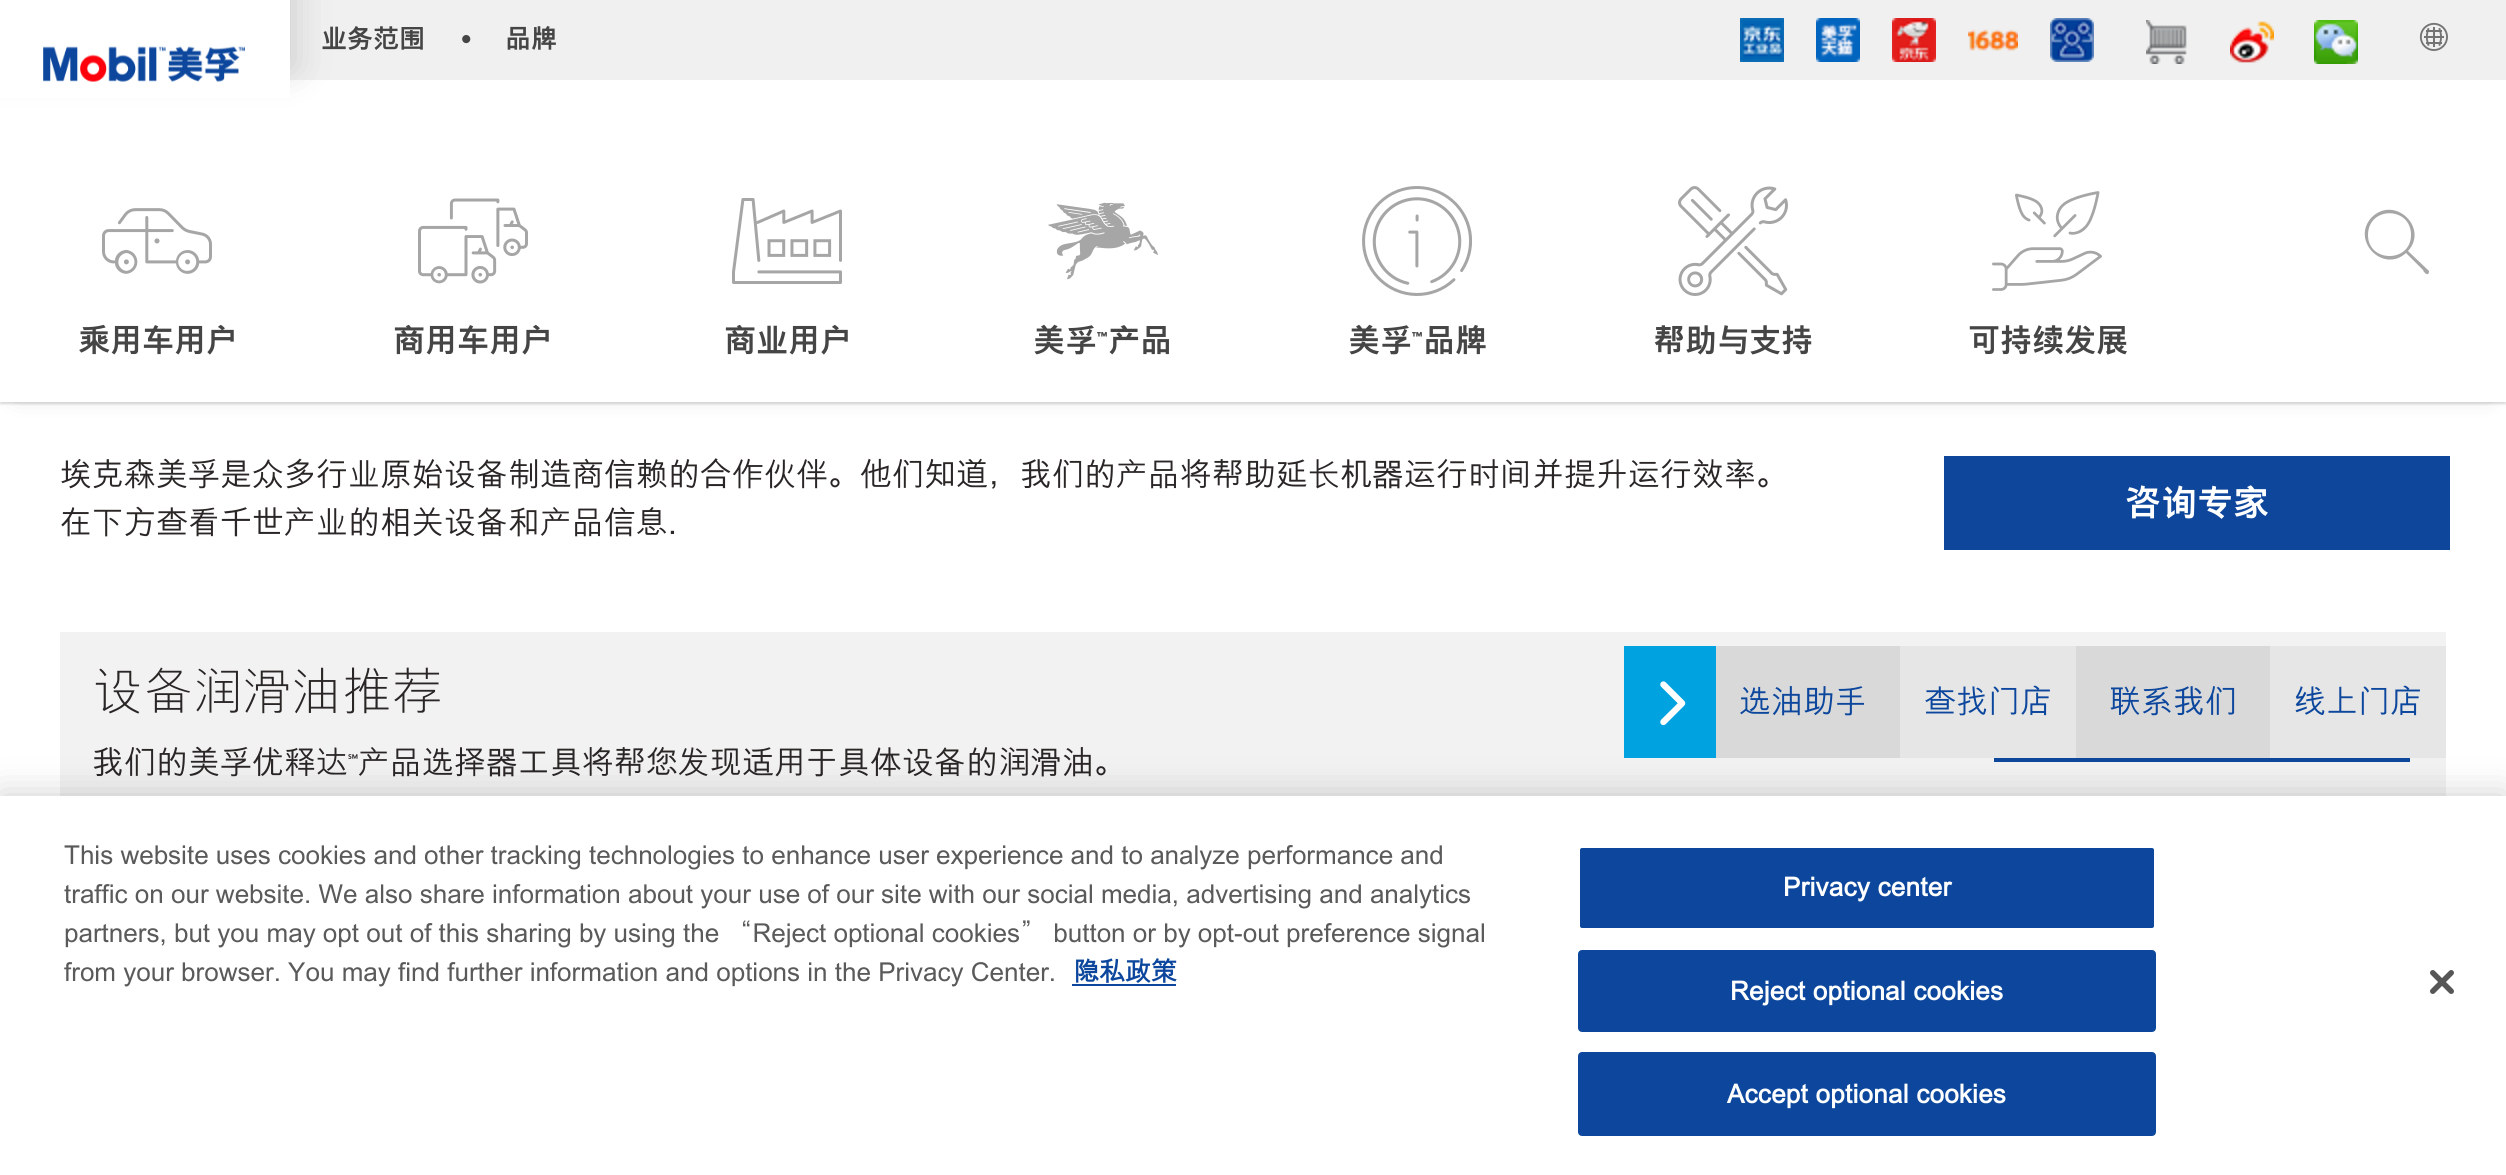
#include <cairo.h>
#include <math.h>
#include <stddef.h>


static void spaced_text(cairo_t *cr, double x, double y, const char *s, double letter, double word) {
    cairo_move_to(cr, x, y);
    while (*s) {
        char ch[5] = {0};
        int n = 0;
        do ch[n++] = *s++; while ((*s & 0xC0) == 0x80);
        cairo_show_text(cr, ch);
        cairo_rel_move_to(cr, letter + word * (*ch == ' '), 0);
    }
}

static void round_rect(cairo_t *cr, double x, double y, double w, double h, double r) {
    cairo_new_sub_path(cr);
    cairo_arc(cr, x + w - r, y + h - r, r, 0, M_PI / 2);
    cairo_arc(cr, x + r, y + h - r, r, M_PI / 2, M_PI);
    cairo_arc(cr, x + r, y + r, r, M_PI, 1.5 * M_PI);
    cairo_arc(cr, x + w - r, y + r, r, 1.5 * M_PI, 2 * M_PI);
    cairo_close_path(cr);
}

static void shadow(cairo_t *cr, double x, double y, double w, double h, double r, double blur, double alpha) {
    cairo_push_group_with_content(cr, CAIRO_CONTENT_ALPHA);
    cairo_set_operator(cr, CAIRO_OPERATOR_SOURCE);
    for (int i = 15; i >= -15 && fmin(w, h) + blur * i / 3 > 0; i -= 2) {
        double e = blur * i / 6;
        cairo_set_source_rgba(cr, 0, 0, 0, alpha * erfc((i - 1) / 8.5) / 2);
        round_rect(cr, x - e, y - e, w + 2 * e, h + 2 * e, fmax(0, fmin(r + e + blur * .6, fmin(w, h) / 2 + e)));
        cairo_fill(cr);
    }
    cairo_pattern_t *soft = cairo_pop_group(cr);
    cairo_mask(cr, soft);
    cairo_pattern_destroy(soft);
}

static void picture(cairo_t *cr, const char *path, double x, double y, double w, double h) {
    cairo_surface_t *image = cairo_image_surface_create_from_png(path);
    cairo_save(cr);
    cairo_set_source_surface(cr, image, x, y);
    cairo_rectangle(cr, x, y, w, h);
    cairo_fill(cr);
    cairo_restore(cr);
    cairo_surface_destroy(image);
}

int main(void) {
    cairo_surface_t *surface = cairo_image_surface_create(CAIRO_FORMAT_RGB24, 2506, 1175);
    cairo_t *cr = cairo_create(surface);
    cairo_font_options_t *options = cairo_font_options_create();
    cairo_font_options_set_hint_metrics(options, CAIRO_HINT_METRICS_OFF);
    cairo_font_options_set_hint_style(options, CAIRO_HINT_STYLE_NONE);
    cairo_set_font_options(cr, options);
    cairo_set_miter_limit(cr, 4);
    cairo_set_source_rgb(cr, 1, 1, 1);
    cairo_paint(cr);
    cairo_set_source_rgb(cr, 0.769, 0.769, 0.769);
    shadow(cr, 18, 26, 2470, 366, 0, 12, 1);
    cairo_set_source_rgb(cr, 0.067, 0.067, 0.067);
    shadow(cr, 0, 2, 2506, 402, 0, 1, 0.15);
    cairo_set_source_rgb(cr, 0.941, 0.941, 0.941);
    cairo_rectangle(cr, 290, 0, 2216, 80);
    cairo_fill(cr);
    cairo_set_source_rgb(cr, 1, 1, 1);
    cairo_rectangle(cr, 0, 80, 2506, 322);
    cairo_fill(cr);
    cairo_set_source_rgb(cr, 0.8, 0.8, 0.8);
    shadow(cr, -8, -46, 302, 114, 0, 18, 1);
    cairo_set_source_rgb(cr, 1, 1, 1);
    cairo_rectangle(cr, 0, 0, 290, 98);
    cairo_fill(cr);
    picture(cr, "img1.png", 43, 46, 202, 36);
    cairo_select_font_face(cr, "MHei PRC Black", CAIRO_FONT_SLANT_NORMAL, CAIRO_FONT_WEIGHT_NORMAL);
    cairo_set_font_size(cr, 26);
    cairo_set_source_rgb(cr, 0.271, 0.271, 0.271);
    cairo_move_to(cr, 321, 48);
    cairo_show_text(cr, "业务范围");
    cairo_select_font_face(cr, "Liberation Sans", CAIRO_FONT_SLANT_NORMAL, CAIRO_FONT_WEIGHT_NORMAL);
    cairo_set_font_size(cr, 30);
    cairo_move_to(cr, 461, 49);
    cairo_show_text(cr, "•");
    cairo_select_font_face(cr, "MHei PRC Black", CAIRO_FONT_SLANT_NORMAL, CAIRO_FONT_WEIGHT_NORMAL);
    cairo_set_font_size(cr, 26);
    cairo_move_to(cr, 505, 48);
    cairo_show_text(cr, "品牌");
    picture(cr, "img2.png", 1740, 18, 44, 44);
    picture(cr, "img3.png", 1816, 18, 44, 44);
    picture(cr, "img4.png", 1892, 18, 44, 44);
    picture(cr, "img5.png", 1968, 29, 50, 22);
    picture(cr, "img6.png", 2050, 18, 44, 44);
    picture(cr, "img7.png", 2146, 20, 41, 44);
    picture(cr, "img8.png", 2230, 21, 44, 42);
    picture(cr, "img9.png", 2314, 20, 44, 44);
    picture(cr, "img10.png", 2419, 22, 29, 29);
    cairo_set_source_rgb(cr, 0.651, 0.651, 0.651);
    cairo_new_path(cr);
    cairo_move_to(cr, 2429, 271);
    cairo_line_to(cr, 2408, 251);
    cairo_curve_to(cr, 2429, 228, 2395, 195, 2372, 217);
    cairo_curve_to(cr, 2350, 240, 2383, 274, 2406, 253);
    cairo_line_to(cr, 2423, 270);
    cairo_curve_to(cr, 2423, 271, 2426, 275, 2428, 274);
    cairo_curve_to(cr, 2429, 273, 2429, 272, 2429, 271);
    cairo_close_path(cr);
    cairo_move_to(cr, 2368, 235);
    cairo_curve_to(cr, 2368, 206, 2411, 206, 2411, 235);
    cairo_curve_to(cr, 2411, 263, 2368, 263, 2368, 235);
    cairo_close_path(cr);
    cairo_fill(cr);
    picture(cr, "img11.png", 102, 208, 110, 66);
    cairo_set_font_size(cr, 32);
    cairo_set_source_rgb(cr, 0.271, 0.271, 0.271);
    cairo_move_to(cr, 78, 352);
    cairo_show_text(cr, "乘用车用户");
    picture(cr, "img12.png", 418, 198, 110, 86);
    cairo_move_to(cr, 393, 352);
    cairo_show_text(cr, "商用车用户");
    picture(cr, "img13.png", 732, 198, 110, 86);
    cairo_move_to(cr, 724, 352);
    cairo_show_text(cr, "商业用户");
    picture(cr, "img14.png", 1048, 202, 110, 78);
    cairo_move_to(cr, 1033, 352);
    cairo_show_text(cr, "美孚");
    cairo_select_font_face(cr, "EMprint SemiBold", CAIRO_FONT_SLANT_NORMAL, CAIRO_FONT_WEIGHT_NORMAL);
    cairo_move_to(cr, 1097, 352);
    cairo_show_text(cr, "™");
    cairo_select_font_face(cr, "MHei PRC Black", CAIRO_FONT_SLANT_NORMAL, CAIRO_FONT_WEIGHT_NORMAL);
    cairo_move_to(cr, 1108, 352);
    cairo_show_text(cr, "产品");
    picture(cr, "img15.png", 1362, 186, 110, 110);
    cairo_move_to(cr, 1348, 352);
    cairo_show_text(cr, "美孚");
    cairo_select_font_face(cr, "EMprint SemiBold", CAIRO_FONT_SLANT_NORMAL, CAIRO_FONT_WEIGHT_NORMAL);
    cairo_move_to(cr, 1412, 352);
    cairo_show_text(cr, "™");
    cairo_select_font_face(cr, "MHei PRC Black", CAIRO_FONT_SLANT_NORMAL, CAIRO_FONT_WEIGHT_NORMAL);
    cairo_move_to(cr, 1423, 352);
    cairo_show_text(cr, "品牌");
    picture(cr, "img16.png", 1678, 186, 110, 110);
    cairo_move_to(cr, 1653, 352);
    cairo_show_text(cr, "帮助与支持");
    picture(cr, "img17.png", 1992, 191, 110, 100);
    cairo_move_to(cr, 1968, 352);
    cairo_show_text(cr, "可持续发展");
    cairo_select_font_face(cr, "MHei PRC Medium", CAIRO_FONT_SLANT_NORMAL, CAIRO_FONT_WEIGHT_NORMAL);
    cairo_set_source_rgb(cr, 0.169, 0.149, 0.149);
    cairo_move_to(cr, 60, 486);
    cairo_show_text(cr, "埃克森美孚是众多行业原始设备制造商信赖的合作伙伴。他们知道，我们的产品将帮助延长机器运行时间并提升运行效率。");
    cairo_move_to(cr, 60, 534);
    cairo_show_text(cr, "在下方查看千世产业的相关设备和产品信息.");
    cairo_set_source_rgb(cr, 0.055, 0.275, 0.608);
    cairo_rectangle(cr, 1944, 456, 506, 94);
    cairo_fill(cr);
    cairo_select_font_face(cr, "MHei PRC Black", CAIRO_FONT_SLANT_NORMAL, CAIRO_FONT_WEIGHT_NORMAL);
    cairo_set_font_size(cr, 36);
    cairo_set_source_rgb(cr, 1, 1, 1);
    cairo_move_to(cr, 2125, 516);
    cairo_show_text(cr, "咨询专家");
    cairo_set_source_rgb(cr, 0.949, 0.949, 0.949);
    cairo_rectangle(cr, 60, 632, 2386, 164);
    cairo_fill(cr);
    cairo_select_font_face(cr, "MHei PRC Light", CAIRO_FONT_SLANT_NORMAL, CAIRO_FONT_WEIGHT_NORMAL);
    cairo_set_font_size(cr, 50);
    cairo_set_source_rgb(cr, 0.169, 0.149, 0.149);
    cairo_move_to(cr, 92, 710);
    cairo_show_text(cr, "设备润滑油推荐");
    cairo_select_font_face(cr, "MHei PRC Medium", CAIRO_FONT_SLANT_NORMAL, CAIRO_FONT_WEIGHT_NORMAL);
    cairo_set_font_size(cr, 32);
    cairo_move_to(cr, 92, 774);
    cairo_show_text(cr, "我们的美孚优释达");
    cairo_select_font_face(cr, "EMprint", CAIRO_FONT_SLANT_NORMAL, CAIRO_FONT_WEIGHT_NORMAL);
    cairo_move_to(cr, 348, 774);
    cairo_show_text(cr, "℠");
    cairo_select_font_face(cr, "MHei PRC Medium", CAIRO_FONT_SLANT_NORMAL, CAIRO_FONT_WEIGHT_NORMAL);
    cairo_move_to(cr, 358, 774);
    cairo_show_text(cr, "产品选择器工具将帮您发现适用于具体设备的润滑油。");
    cairo_set_source_rgb(cr, 0.047, 0.278, 0.616);
    cairo_rectangle(cr, 1994, 758, 416, 4);
    cairo_fill(cr);
    cairo_set_source_rgb(cr, 0, 0.639, 0.878);
    cairo_rectangle(cr, 1624, 646, 92, 112);
    cairo_fill(cr);
    picture(cr, "img18.png", 1660, 681, 26, 45);
    cairo_set_source_rgb(cr, 0.851, 0.851, 0.851);
    cairo_rectangle(cr, 1716, 646, 554, 112);
    cairo_fill(cr);
    cairo_set_source_rgb(cr, 0.047, 0.278, 0.616);
    cairo_move_to(cr, 1739, 713);
    cairo_show_text(cr, "选油助手");
    cairo_set_source_rgb(cr, 0.902, 0.902, 0.902);
    cairo_rectangle(cr, 1900, 646, 176, 112);
    cairo_fill(cr);
    cairo_set_source_rgb(cr, 0.047, 0.278, 0.616);
    cairo_move_to(cr, 1924, 713);
    cairo_show_text(cr, "查找门店");
    cairo_move_to(cr, 2109, 713);
    cairo_show_text(cr, "联系我们");
    cairo_set_source_rgb(cr, 0.902, 0.902, 0.902);
    cairo_rectangle(cr, 2270, 646, 176, 112);
    cairo_fill(cr);
    cairo_set_source_rgb(cr, 0.047, 0.278, 0.616);
    cairo_move_to(cr, 2294, 713);
    cairo_show_text(cr, "线上门店");
    cairo_set_source_rgb(cr, 0, 0, 0);
    shadow(cr, 0, 796, 2506, 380, 0, 18, 0.2);
    cairo_set_source_rgb(cr, 1, 1, 1);
    cairo_rectangle(cr, 0, 796, 2506, 379);
    cairo_fill(cr);
    cairo_set_font_size(cr, 26.02);
    cairo_set_source_rgb(cr, 0.353, 0.353, 0.353);
    cairo_move_to(cr, 64, 864);
    cairo_show_text(cr, "This website uses cookies and other tracking technologies to enhance user experience and to analyze performance and");
    cairo_move_to(cr, 64, 903);
    cairo_show_text(cr, "traffic on our website. We also share information about your use of our site with our social media, advertising and analytics");
    cairo_move_to(cr, 64, 942);
    cairo_show_text(cr, "partners, but you may opt out of this sharing by using the “Reject optional cookies” button or by opt-out preference signal");
    cairo_move_to(cr, 64, 981);
    cairo_show_text(cr, "from your browser. You may find further information and options in the Privacy Center.");
    cairo_select_font_face(cr, "MHei PRC", CAIRO_FONT_SLANT_NORMAL, CAIRO_FONT_WEIGHT_BOLD);
    cairo_set_source_rgb(cr, 0.047, 0.278, 0.616);
    cairo_move_to(cr, 1073, 981);
    cairo_show_text(cr, "隐私政策");
    cairo_rectangle(cr, 1072, 984, 104, 2);
    cairo_fill(cr);
    round_rect(cr, 1579, 847, 576, 82, 3);
    cairo_fill_preserve(cr);
    cairo_set_source_rgb(cr, 1, 1, 1);
    cairo_stroke(cr);
    spaced_text(cr, 1783, 896, "Privacy center", 0.25, 0);
    cairo_set_source_rgb(cr, 0.047, 0.278, 0.616);
    round_rect(cr, 1579, 951, 576, 80, 3);
    cairo_fill_preserve(cr);
    cairo_stroke(cr);
    cairo_set_source_rgb(cr, 1, 1, 1);
    spaced_text(cr, 1730, 1000, "Reject optional cookies", 0.25, 0);
    cairo_set_source_rgb(cr, 0.047, 0.278, 0.616);
    round_rect(cr, 1579, 1053, 576, 82, 3);
    cairo_fill_preserve(cr);
    cairo_stroke(cr);
    cairo_set_source_rgb(cr, 1, 1, 1);
    spaced_text(cr, 1727, 1103, "Accept optional cookies", 0.25, 0);
    picture(cr, "img19.png", 2430, 970, 24, 24);
    cairo_surface_write_to_png(surface, "page.png");
    cairo_font_options_destroy(options);
    cairo_destroy(cr);
    cairo_surface_destroy(surface);
    return 0;
}
